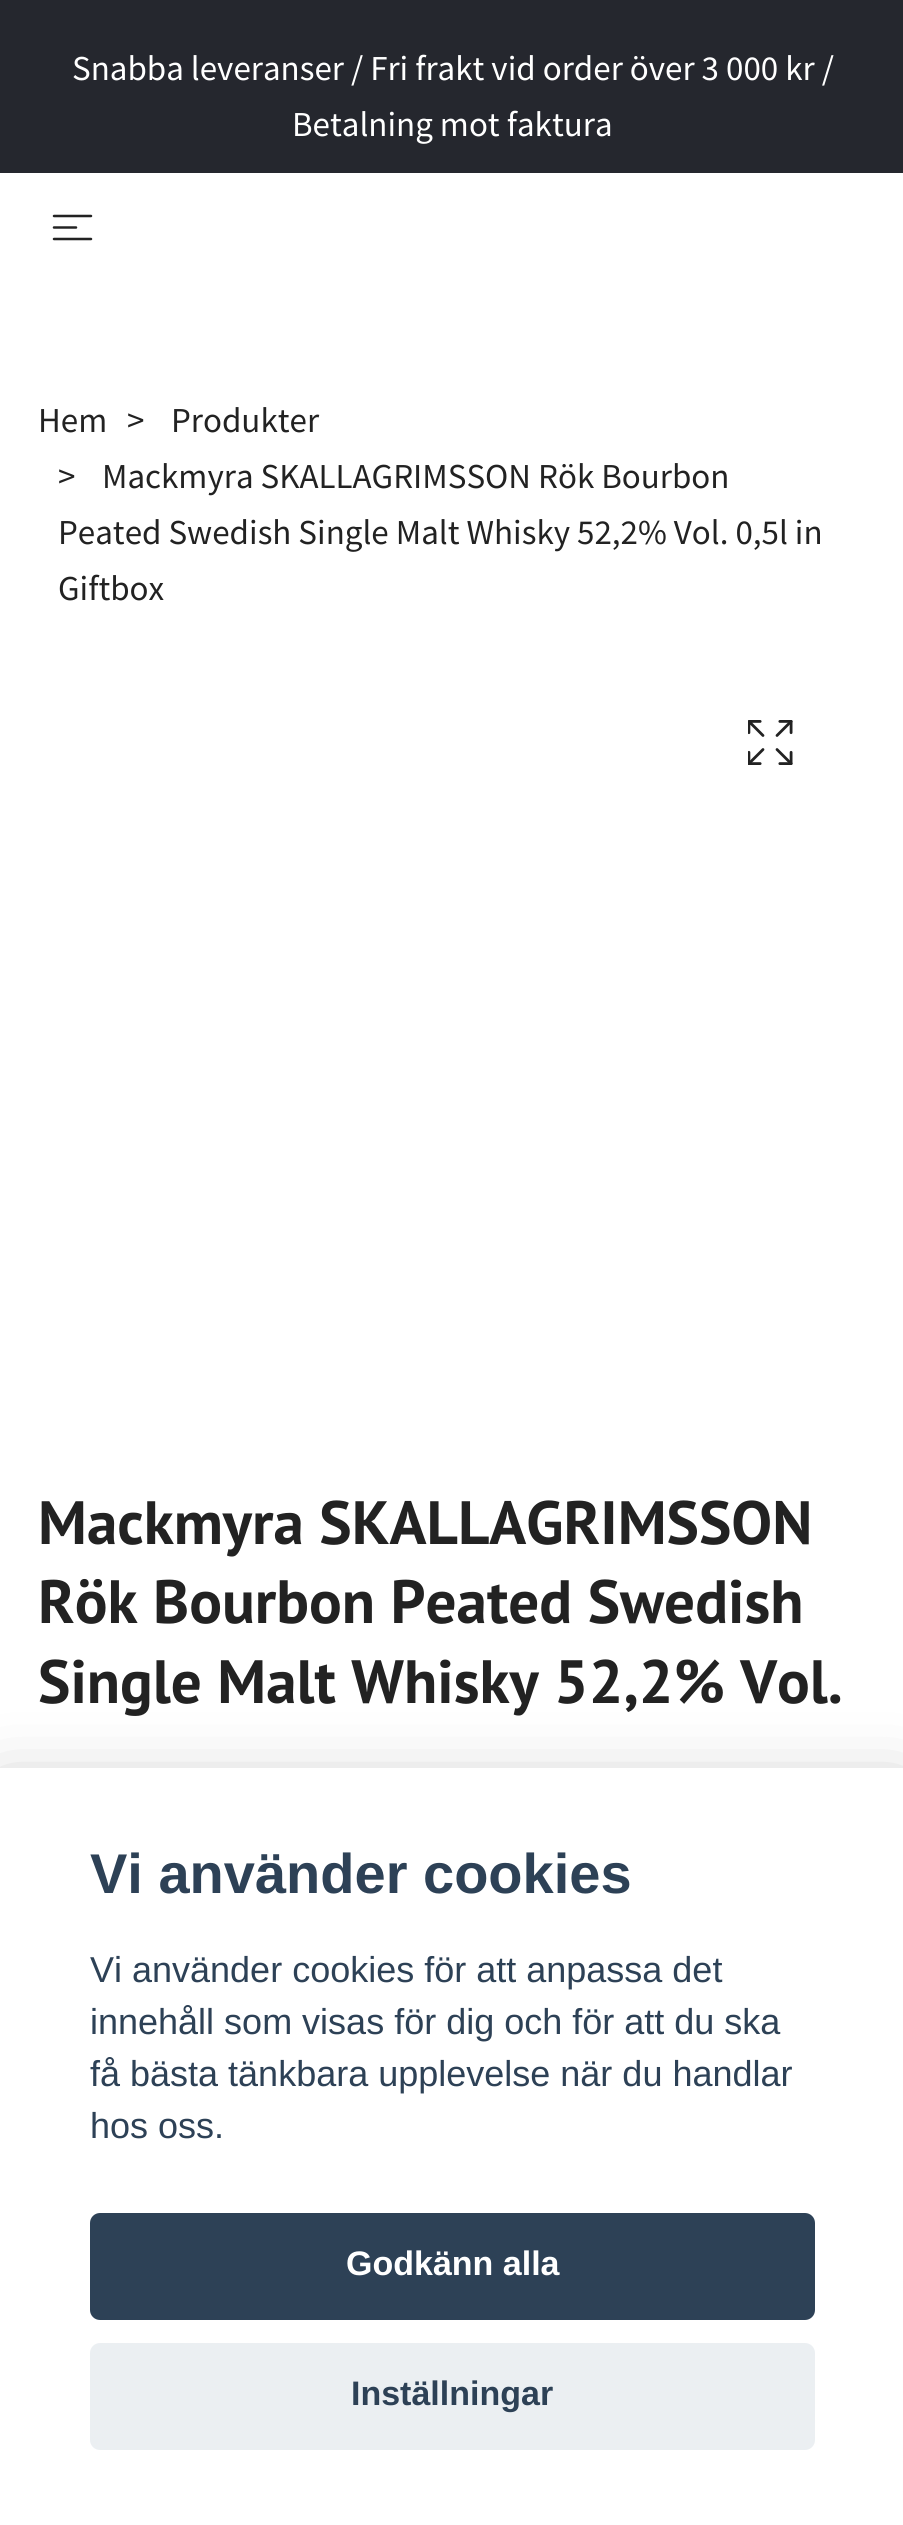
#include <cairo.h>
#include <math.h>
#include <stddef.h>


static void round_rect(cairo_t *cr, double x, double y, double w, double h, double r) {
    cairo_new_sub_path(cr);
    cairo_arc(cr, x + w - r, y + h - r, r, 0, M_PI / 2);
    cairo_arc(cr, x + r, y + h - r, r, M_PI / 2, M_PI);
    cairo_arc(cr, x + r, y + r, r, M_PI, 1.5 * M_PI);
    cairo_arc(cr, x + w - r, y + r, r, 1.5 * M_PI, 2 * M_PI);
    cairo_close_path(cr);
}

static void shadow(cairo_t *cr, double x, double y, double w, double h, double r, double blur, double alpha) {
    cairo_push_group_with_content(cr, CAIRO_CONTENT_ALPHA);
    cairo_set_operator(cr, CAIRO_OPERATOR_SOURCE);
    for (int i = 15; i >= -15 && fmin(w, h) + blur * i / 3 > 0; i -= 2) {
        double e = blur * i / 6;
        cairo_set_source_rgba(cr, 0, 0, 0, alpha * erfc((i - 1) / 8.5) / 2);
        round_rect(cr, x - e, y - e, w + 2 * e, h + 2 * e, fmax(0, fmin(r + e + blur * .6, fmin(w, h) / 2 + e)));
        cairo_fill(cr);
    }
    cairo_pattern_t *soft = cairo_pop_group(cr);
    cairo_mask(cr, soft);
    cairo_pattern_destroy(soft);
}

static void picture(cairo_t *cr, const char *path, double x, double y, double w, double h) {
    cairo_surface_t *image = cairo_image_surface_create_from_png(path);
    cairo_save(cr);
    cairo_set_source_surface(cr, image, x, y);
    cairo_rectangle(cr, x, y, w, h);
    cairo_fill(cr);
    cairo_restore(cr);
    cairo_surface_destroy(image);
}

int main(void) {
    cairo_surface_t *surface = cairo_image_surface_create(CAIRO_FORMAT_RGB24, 903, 2525);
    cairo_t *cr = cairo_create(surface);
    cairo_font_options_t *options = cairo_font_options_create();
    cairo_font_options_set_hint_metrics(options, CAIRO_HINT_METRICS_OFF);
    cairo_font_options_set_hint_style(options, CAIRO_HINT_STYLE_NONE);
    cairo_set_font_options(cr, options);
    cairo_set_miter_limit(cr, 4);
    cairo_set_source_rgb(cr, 1, 1, 1);
    cairo_paint(cr);
    cairo_set_source_rgb(cr, 0.145, 0.153, 0.18);
    cairo_rectangle(cr, 0, 0, 903, 173);
    cairo_fill(cr);
    cairo_select_font_face(cr, "Source Sans Pro", CAIRO_FONT_SLANT_NORMAL, CAIRO_FONT_WEIGHT_NORMAL);
    cairo_set_font_size(cr, 35);
    cairo_set_source_rgb(cr, 1, 1, 1);
    cairo_move_to(cr, 72, 80);
    cairo_show_text(cr, "Snabba leveranser / Fri frakt vid order över 3 000 kr /");
    cairo_move_to(cr, 292, 136);
    cairo_show_text(cr, "Betalning mot faktura");
    cairo_new_path(cr);
    cairo_move_to(cr, 54, 216);
    cairo_line_to(cr, 91, 216);
    cairo_move_to(cr, 54, 227.5);
    cairo_line_to(cr, 76, 227.5);
    cairo_move_to(cr, 54, 239);
    cairo_line_to(cr, 91, 239);
    cairo_set_source_rgb(cr, 0.133, 0.133, 0.133);
    cairo_set_line_width(cr, 2.5);
    cairo_set_line_cap(cr, CAIRO_LINE_CAP_ROUND);
    cairo_set_line_join(cr, CAIRO_LINE_JOIN_ROUND);
    cairo_stroke(cr);
    cairo_move_to(cr, 38, 432);
    cairo_show_text(cr, "Hem");
    cairo_move_to(cr, 127, 432);
    cairo_show_text(cr, ">");
    cairo_move_to(cr, 171, 432);
    cairo_show_text(cr, "Produkter");
    cairo_move_to(cr, 58, 488);
    cairo_show_text(cr, ">");
    cairo_move_to(cr, 102, 488);
    cairo_show_text(cr, "Mackmyra SKALLAGRIMSSON Rök Bourbon");
    cairo_move_to(cr, 58, 544);
    cairo_show_text(cr, "Peated Swedish Single Malt Whisky 52,2% Vol. 0,5l in");
    cairo_move_to(cr, 58, 600);
    cairo_show_text(cr, "Giftbox");
    picture(cr, "img1.png", 748, 720, 45, 45);
    cairo_select_font_face(cr, "PT Sans", CAIRO_FONT_SLANT_NORMAL, CAIRO_FONT_WEIGHT_BOLD);
    cairo_set_font_size(cr, 61.1);
    cairo_move_to(cr, 38, 1544);
    cairo_show_text(cr, "Mackmyra SKALLAGRIMSSON");
    cairo_move_to(cr, 38, 1623);
    cairo_show_text(cr, "Rök Bourbon Peated Swedish");
    cairo_move_to(cr, 38, 1703);
    cairo_show_text(cr, "Single Malt Whisky 52,2% Vol.");
    cairo_set_source_rgb(cr, 0.008, 0.008, 0.012);
    shadow(cr, 0, 1793, 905, 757, 0, 37.5, 0.28);
    cairo_set_source_rgb(cr, 1, 1, 1);
    cairo_rectangle(cr, 0, 1768, 903, 757);
    cairo_fill(cr);
    cairo_select_font_face(cr, "Liberation Sans", CAIRO_FONT_SLANT_NORMAL, CAIRO_FONT_WEIGHT_BOLD);
    cairo_set_font_size(cr, 56);
    cairo_set_source_rgb(cr, 0.176, 0.255, 0.337);
    cairo_move_to(cr, 90, 1893);
    cairo_show_text(cr, "Vi använder cookies");
    cairo_select_font_face(cr, "Liberation Sans", CAIRO_FONT_SLANT_NORMAL, CAIRO_FONT_WEIGHT_NORMAL);
    cairo_set_font_size(cr, 36);
    cairo_move_to(cr, 90, 1982);
    cairo_show_text(cr, "Vi använder cookies för att anpassa det");
    cairo_move_to(cr, 90, 2034);
    cairo_show_text(cr, "innehåll som visas för dig och för att du ska");
    cairo_move_to(cr, 90, 2086);
    cairo_show_text(cr, "få bästa tänkbara upplevelse när du handlar");
    cairo_move_to(cr, 90, 2138);
    cairo_show_text(cr, "hos oss.");
    round_rect(cr, 90, 2213, 725, 107, 10);
    cairo_fill(cr);
    cairo_select_font_face(cr, "Liberation Sans", CAIRO_FONT_SLANT_NORMAL, CAIRO_FONT_WEIGHT_BOLD);
    cairo_set_font_size(cr, 34);
    cairo_set_source_rgb(cr, 1, 1, 1);
    cairo_move_to(cr, 346, 2275);
    cairo_show_text(cr, "Godkänn alla");
    cairo_set_source_rgb(cr, 0.918, 0.937, 0.949);
    round_rect(cr, 90, 2343, 725, 107, 10);
    cairo_fill(cr);
    cairo_set_source_rgb(cr, 0.176, 0.255, 0.337);
    cairo_move_to(cr, 351, 2405);
    cairo_show_text(cr, "Inställningar");
    cairo_surface_write_to_png(surface, "page.png");
    cairo_font_options_destroy(options);
    cairo_destroy(cr);
    cairo_surface_destroy(surface);
    return 0;
}
